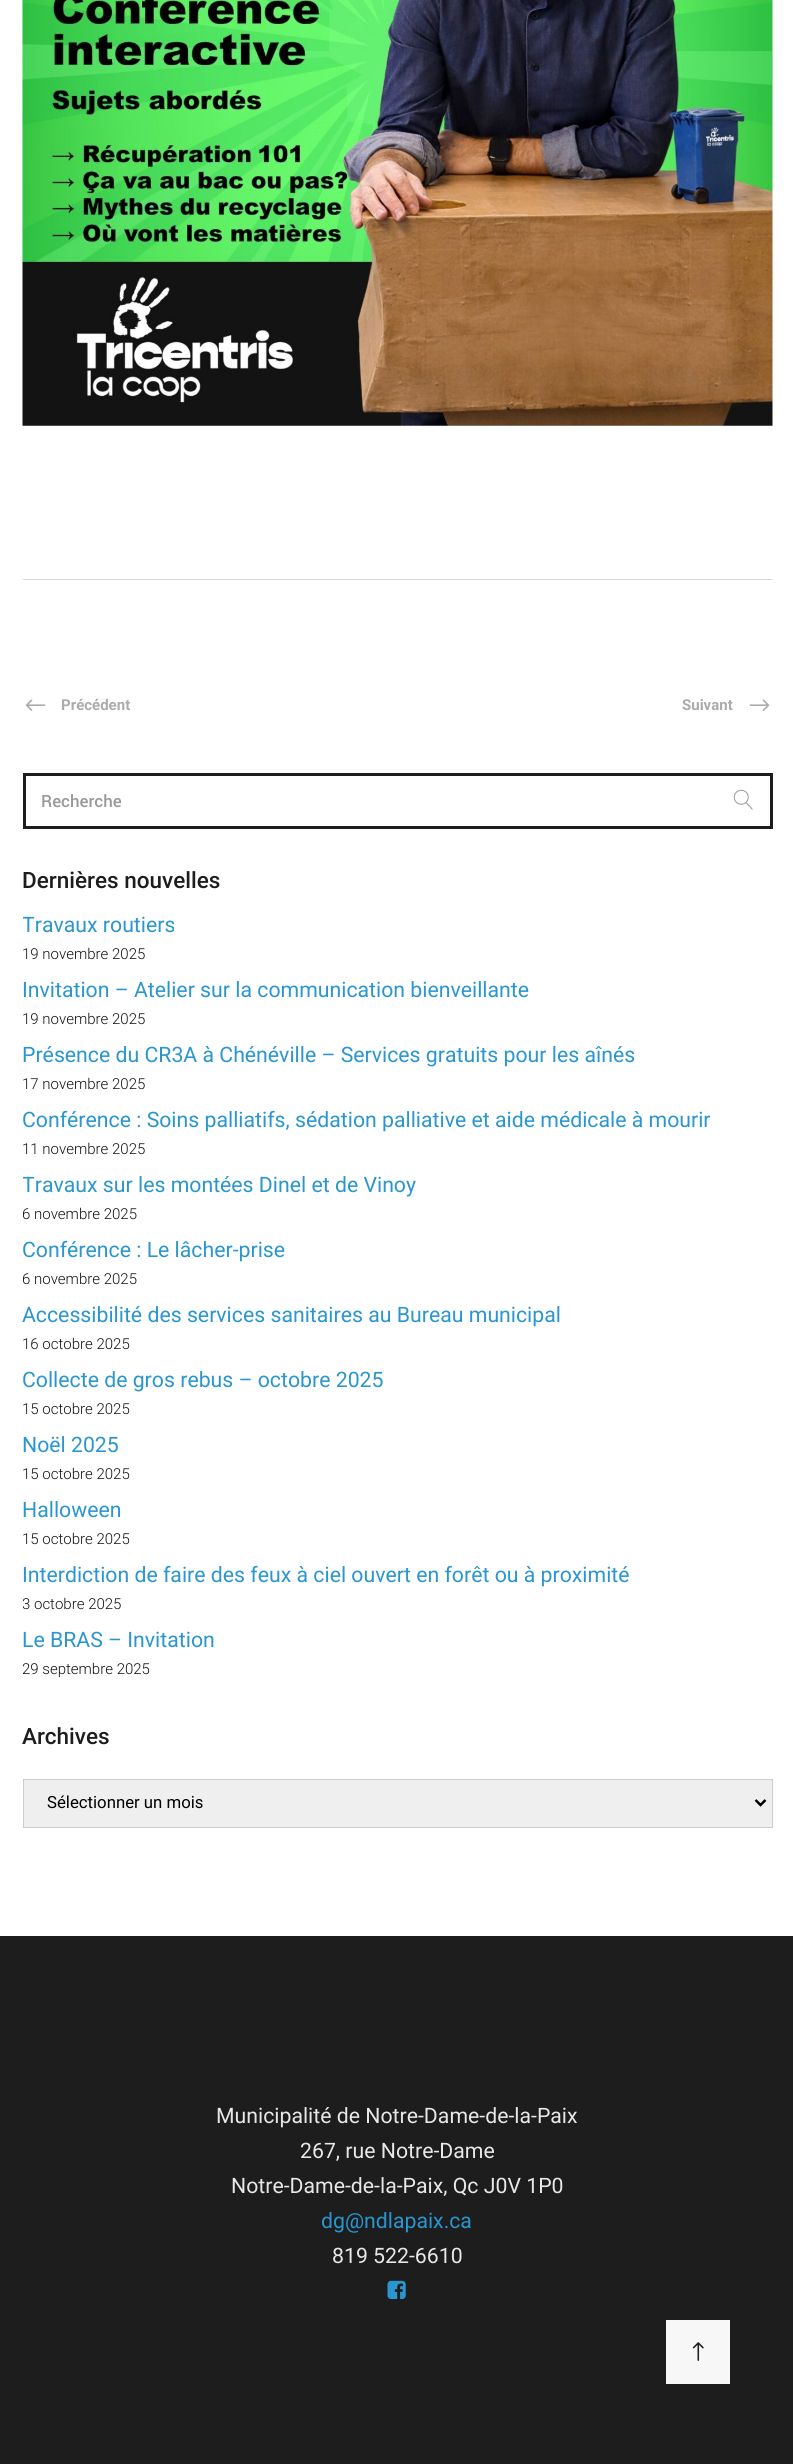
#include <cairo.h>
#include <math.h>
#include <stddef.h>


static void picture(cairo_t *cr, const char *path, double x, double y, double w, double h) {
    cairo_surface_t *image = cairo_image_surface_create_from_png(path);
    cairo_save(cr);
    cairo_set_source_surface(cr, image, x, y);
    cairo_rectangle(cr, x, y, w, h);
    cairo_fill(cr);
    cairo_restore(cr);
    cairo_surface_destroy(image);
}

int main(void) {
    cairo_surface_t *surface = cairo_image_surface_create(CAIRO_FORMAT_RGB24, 793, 2464);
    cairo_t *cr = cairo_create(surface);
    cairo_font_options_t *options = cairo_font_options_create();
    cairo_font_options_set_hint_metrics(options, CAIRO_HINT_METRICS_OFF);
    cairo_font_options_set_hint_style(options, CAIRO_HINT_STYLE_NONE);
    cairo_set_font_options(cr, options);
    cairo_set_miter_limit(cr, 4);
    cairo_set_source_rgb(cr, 1, 1, 1);
    cairo_paint(cr);
    picture(cr, "img1.png", 22, 0, 751, 426);
    cairo_set_source_rgb(cr, 0.859, 0.859, 0.859);
    cairo_rectangle(cr, 23, 579, 750, 1);
    cairo_fill(cr);
    picture(cr, "img2.png", 25, 699, 21, 12);
    cairo_select_font_face(cr, "Roboto", CAIRO_FONT_SLANT_NORMAL, CAIRO_FONT_WEIGHT_BOLD);
    cairo_set_font_size(cr, 15);
    cairo_set_source_rgb(cr, 0.671, 0.671, 0.671);
    cairo_move_to(cr, 61, 710);
    cairo_show_text(cr, "Précédent");
    cairo_move_to(cr, 682, 710);
    cairo_show_text(cr, "Suivant");
    picture(cr, "img3.png", 749, 699, 21, 12);
    cairo_rectangle(cr, 24.5, 774.5, 747, 53);
    cairo_set_source_rgb(cr, 0.114, 0.114, 0.114);
    cairo_set_line_width(cr, 3);
    cairo_stroke(cr);
    cairo_select_font_face(cr, "Yantramanav Medium", CAIRO_FONT_SLANT_NORMAL, CAIRO_FONT_WEIGHT_NORMAL);
    cairo_set_font_size(cr, 18.75);
    cairo_set_source_rgb(cr, 0.6, 0.6, 0.6);
    cairo_move_to(cr, 41, 807);
    cairo_show_text(cr, "Recherche");
    picture(cr, "img4.png", 733, 789, 20, 21);
    cairo_select_font_face(cr, "Roboto Medium", CAIRO_FONT_SLANT_NORMAL, CAIRO_FONT_WEIGHT_NORMAL);
    cairo_set_font_size(cr, 22.5);
    cairo_set_source_rgb(cr, 0.114, 0.114, 0.114);
    cairo_move_to(cr, 22, 888);
    cairo_show_text(cr, "Dernières nouvelles");
    cairo_save(cr);
    cairo_rectangle(cr, 23, 904, 750, 65);
    cairo_clip(cr);
    cairo_select_font_face(cr, "Roboto", CAIRO_FONT_SLANT_NORMAL, CAIRO_FONT_WEIGHT_NORMAL);
    cairo_set_font_size(cr, 21.25);
    cairo_set_source_rgb(cr, 0.165, 0.588, 0.816);
    cairo_move_to(cr, 22, 932);
    cairo_show_text(cr, "Travaux routiers");
    cairo_restore(cr);
    cairo_select_font_face(cr, "Roboto Light", CAIRO_FONT_SLANT_NORMAL, CAIRO_FONT_WEIGHT_NORMAL);
    cairo_set_font_size(cr, 15);
    cairo_set_source_rgb(cr, 0.067, 0.067, 0.067);
    cairo_move_to(cr, 22, 959);
    cairo_show_text(cr, "19 novembre 2025");
    cairo_select_font_face(cr, "Roboto", CAIRO_FONT_SLANT_NORMAL, CAIRO_FONT_WEIGHT_NORMAL);
    cairo_set_font_size(cr, 21.25);
    cairo_set_source_rgb(cr, 0.165, 0.588, 0.816);
    cairo_move_to(cr, 22, 997);
    cairo_show_text(cr, "Invitation – Atelier sur la communication bienveillante");
    cairo_select_font_face(cr, "Roboto Light", CAIRO_FONT_SLANT_NORMAL, CAIRO_FONT_WEIGHT_NORMAL);
    cairo_set_font_size(cr, 15);
    cairo_set_source_rgb(cr, 0.067, 0.067, 0.067);
    cairo_move_to(cr, 22, 1024);
    cairo_show_text(cr, "19 novembre 2025");
    cairo_select_font_face(cr, "Roboto", CAIRO_FONT_SLANT_NORMAL, CAIRO_FONT_WEIGHT_NORMAL);
    cairo_set_font_size(cr, 21.25);
    cairo_set_source_rgb(cr, 0.165, 0.588, 0.816);
    cairo_move_to(cr, 22, 1062);
    cairo_show_text(cr, "Présence du CR3A à Chénéville – Services gratuits pour les aînés");
    cairo_select_font_face(cr, "Roboto Light", CAIRO_FONT_SLANT_NORMAL, CAIRO_FONT_WEIGHT_NORMAL);
    cairo_set_font_size(cr, 15);
    cairo_set_source_rgb(cr, 0.067, 0.067, 0.067);
    cairo_move_to(cr, 22, 1089);
    cairo_show_text(cr, "17 novembre 2025");
    cairo_select_font_face(cr, "Roboto", CAIRO_FONT_SLANT_NORMAL, CAIRO_FONT_WEIGHT_NORMAL);
    cairo_set_font_size(cr, 21.25);
    cairo_set_source_rgb(cr, 0.165, 0.588, 0.816);
    cairo_move_to(cr, 22, 1127);
    cairo_show_text(cr, "Conférence : Soins palliatifs, sédation palliative et aide médicale à mourir");
    cairo_select_font_face(cr, "Roboto Light", CAIRO_FONT_SLANT_NORMAL, CAIRO_FONT_WEIGHT_NORMAL);
    cairo_set_font_size(cr, 15);
    cairo_set_source_rgb(cr, 0.067, 0.067, 0.067);
    cairo_move_to(cr, 22, 1154);
    cairo_show_text(cr, "11 novembre 2025");
    cairo_save(cr);
    cairo_rectangle(cr, 23, 1164, 750, 65);
    cairo_clip(cr);
    cairo_select_font_face(cr, "Roboto", CAIRO_FONT_SLANT_NORMAL, CAIRO_FONT_WEIGHT_NORMAL);
    cairo_set_font_size(cr, 21.25);
    cairo_set_source_rgb(cr, 0.165, 0.588, 0.816);
    cairo_move_to(cr, 22, 1192);
    cairo_show_text(cr, "Travaux sur les montées Dinel et de Vinoy");
    cairo_select_font_face(cr, "Roboto Light", CAIRO_FONT_SLANT_NORMAL, CAIRO_FONT_WEIGHT_NORMAL);
    cairo_set_font_size(cr, 15);
    cairo_set_source_rgb(cr, 0.067, 0.067, 0.067);
    cairo_move_to(cr, 22, 1219);
    cairo_show_text(cr, "6 novembre 2025");
    cairo_restore(cr);
    cairo_select_font_face(cr, "Roboto", CAIRO_FONT_SLANT_NORMAL, CAIRO_FONT_WEIGHT_NORMAL);
    cairo_set_font_size(cr, 21.25);
    cairo_set_source_rgb(cr, 0.165, 0.588, 0.816);
    cairo_move_to(cr, 22, 1257);
    cairo_show_text(cr, "Conférence : Le lâcher-prise");
    cairo_save(cr);
    cairo_rectangle(cr, 23, 1229, 750, 65);
    cairo_clip(cr);
    cairo_select_font_face(cr, "Roboto Light", CAIRO_FONT_SLANT_NORMAL, CAIRO_FONT_WEIGHT_NORMAL);
    cairo_set_font_size(cr, 15);
    cairo_set_source_rgb(cr, 0.067, 0.067, 0.067);
    cairo_move_to(cr, 22, 1284);
    cairo_show_text(cr, "6 novembre 2025");
    cairo_restore(cr);
    cairo_move_to(cr, 22, 1322);
    cairo_show_text(cr, "Accessibilité des services sanitaires au Bureau municipal");
    cairo_select_font_face(cr, "Roboto Light", CAIRO_FONT_SLANT_NORMAL, CAIRO_FONT_WEIGHT_NORMAL);
    cairo_set_font_size(cr, 15);
    cairo_set_source_rgb(cr, 0.067, 0.067, 0.067);
    cairo_move_to(cr, 22, 1349);
    cairo_show_text(cr, "16 octobre 2025");
    cairo_select_font_face(cr, "Roboto", CAIRO_FONT_SLANT_NORMAL, CAIRO_FONT_WEIGHT_NORMAL);
    cairo_set_font_size(cr, 21.25);
    cairo_set_source_rgb(cr, 0.165, 0.588, 0.816);
    cairo_move_to(cr, 22, 1387);
    cairo_show_text(cr, "Collecte de gros rebus – octobre 2025");
    cairo_select_font_face(cr, "Roboto Light", CAIRO_FONT_SLANT_NORMAL, CAIRO_FONT_WEIGHT_NORMAL);
    cairo_set_font_size(cr, 15);
    cairo_set_source_rgb(cr, 0.067, 0.067, 0.067);
    cairo_move_to(cr, 22, 1414);
    cairo_show_text(cr, "15 octobre 2025");
    cairo_select_font_face(cr, "Roboto", CAIRO_FONT_SLANT_NORMAL, CAIRO_FONT_WEIGHT_NORMAL);
    cairo_set_font_size(cr, 21.25);
    cairo_set_source_rgb(cr, 0.165, 0.588, 0.816);
    cairo_move_to(cr, 22, 1452);
    cairo_show_text(cr, "Noël 2025");
    cairo_select_font_face(cr, "Roboto Light", CAIRO_FONT_SLANT_NORMAL, CAIRO_FONT_WEIGHT_NORMAL);
    cairo_set_font_size(cr, 15);
    cairo_set_source_rgb(cr, 0.067, 0.067, 0.067);
    cairo_move_to(cr, 22, 1479);
    cairo_show_text(cr, "15 octobre 2025");
    cairo_select_font_face(cr, "Roboto", CAIRO_FONT_SLANT_NORMAL, CAIRO_FONT_WEIGHT_NORMAL);
    cairo_set_font_size(cr, 21.25);
    cairo_set_source_rgb(cr, 0.165, 0.588, 0.816);
    cairo_move_to(cr, 22, 1517);
    cairo_show_text(cr, "Halloween");
    cairo_select_font_face(cr, "Roboto Light", CAIRO_FONT_SLANT_NORMAL, CAIRO_FONT_WEIGHT_NORMAL);
    cairo_set_font_size(cr, 15);
    cairo_set_source_rgb(cr, 0.067, 0.067, 0.067);
    cairo_move_to(cr, 22, 1544);
    cairo_show_text(cr, "15 octobre 2025");
    cairo_select_font_face(cr, "Roboto", CAIRO_FONT_SLANT_NORMAL, CAIRO_FONT_WEIGHT_NORMAL);
    cairo_set_font_size(cr, 21.25);
    cairo_set_source_rgb(cr, 0.165, 0.588, 0.816);
    cairo_move_to(cr, 22, 1582);
    cairo_show_text(cr, "Interdiction de faire des feux à ciel ouvert en forêt ou à proximité");
    cairo_save(cr);
    cairo_rectangle(cr, 23, 1554, 750, 65);
    cairo_clip(cr);
    cairo_select_font_face(cr, "Roboto Light", CAIRO_FONT_SLANT_NORMAL, CAIRO_FONT_WEIGHT_NORMAL);
    cairo_set_font_size(cr, 15);
    cairo_set_source_rgb(cr, 0.067, 0.067, 0.067);
    cairo_move_to(cr, 22, 1609);
    cairo_show_text(cr, "3 octobre 2025");
    cairo_restore(cr);
    cairo_move_to(cr, 22, 1647);
    cairo_show_text(cr, "Le BRAS – Invitation");
    cairo_save(cr);
    cairo_rectangle(cr, 23, 1619, 750, 65);
    cairo_clip(cr);
    cairo_select_font_face(cr, "Roboto Light", CAIRO_FONT_SLANT_NORMAL, CAIRO_FONT_WEIGHT_NORMAL);
    cairo_set_font_size(cr, 15);
    cairo_set_source_rgb(cr, 0.067, 0.067, 0.067);
    cairo_move_to(cr, 22, 1674);
    cairo_show_text(cr, "29 septembre 2025");
    cairo_restore(cr);
    cairo_select_font_face(cr, "Roboto Medium", CAIRO_FONT_SLANT_NORMAL, CAIRO_FONT_WEIGHT_NORMAL);
    cairo_set_font_size(cr, 22.5);
    cairo_set_source_rgb(cr, 0.114, 0.114, 0.114);
    cairo_move_to(cr, 22, 1744);
    cairo_show_text(cr, "Archives");
    cairo_set_source_rgb(cr, 0.937, 0.937, 0.937);
    cairo_rectangle(cr, 23.5, 1779.5, 749, 48);
    cairo_fill_preserve(cr);
    cairo_set_source_rgb(cr, 0.804, 0.804, 0.804);
    cairo_set_line_width(cr, 1);
    cairo_stroke(cr);
    cairo_new_path(cr);
    cairo_move_to(cr, 755.5, 1800);
    cairo_line_to(cr, 760.5, 1805);
    cairo_line_to(cr, 765.5, 1800);
    cairo_set_source_rgb(cr, 0, 0, 0);
    cairo_set_line_width(cr, 2.5);
    cairo_stroke(cr);
    cairo_select_font_face(cr, "Roboto", CAIRO_FONT_SLANT_NORMAL, CAIRO_FONT_WEIGHT_NORMAL);
    cairo_set_font_size(cr, 16.75);
    cairo_move_to(cr, 47, 1808);
    cairo_show_text(cr, "Sélectionner un mois");
    cairo_set_source_rgb(cr, 0.114, 0.114, 0.114);
    cairo_rectangle(cr, 0, 1936, 793, 528);
    cairo_fill(cr);
    cairo_set_font_size(cr, 21.25);
    cairo_set_source_rgb(cr, 0.91, 0.91, 0.91);
    cairo_move_to(cr, 216, 2123);
    cairo_show_text(cr, "Municipalité de Notre-Dame-de-la-Paix");
    cairo_move_to(cr, 300, 2158);
    cairo_show_text(cr, "267, rue Notre-Dame");
    cairo_move_to(cr, 231, 2193);
    cairo_show_text(cr, "Notre-Dame-de-la-Paix, Qc J0V 1P0");
    cairo_set_source_rgb(cr, 0.165, 0.588, 0.816);
    cairo_move_to(cr, 321, 2228);
    cairo_show_text(cr, "dg@ndlapaix.ca");
    cairo_set_source_rgb(cr, 0.91, 0.91, 0.91);
    cairo_move_to(cr, 332, 2263);
    cairo_show_text(cr, "819 522-6610");
    picture(cr, "img5.png", 387, 2280, 19, 19);
    cairo_set_source_rgb(cr, 0.965, 0.965, 0.965);
    cairo_rectangle(cr, 666, 2320, 64, 64);
    cairo_fill(cr);
    picture(cr, "img6.png", 692, 2342, 12, 19);
    cairo_surface_write_to_png(surface, "page.png");
    cairo_font_options_destroy(options);
    cairo_destroy(cr);
    cairo_surface_destroy(surface);
    return 0;
}
